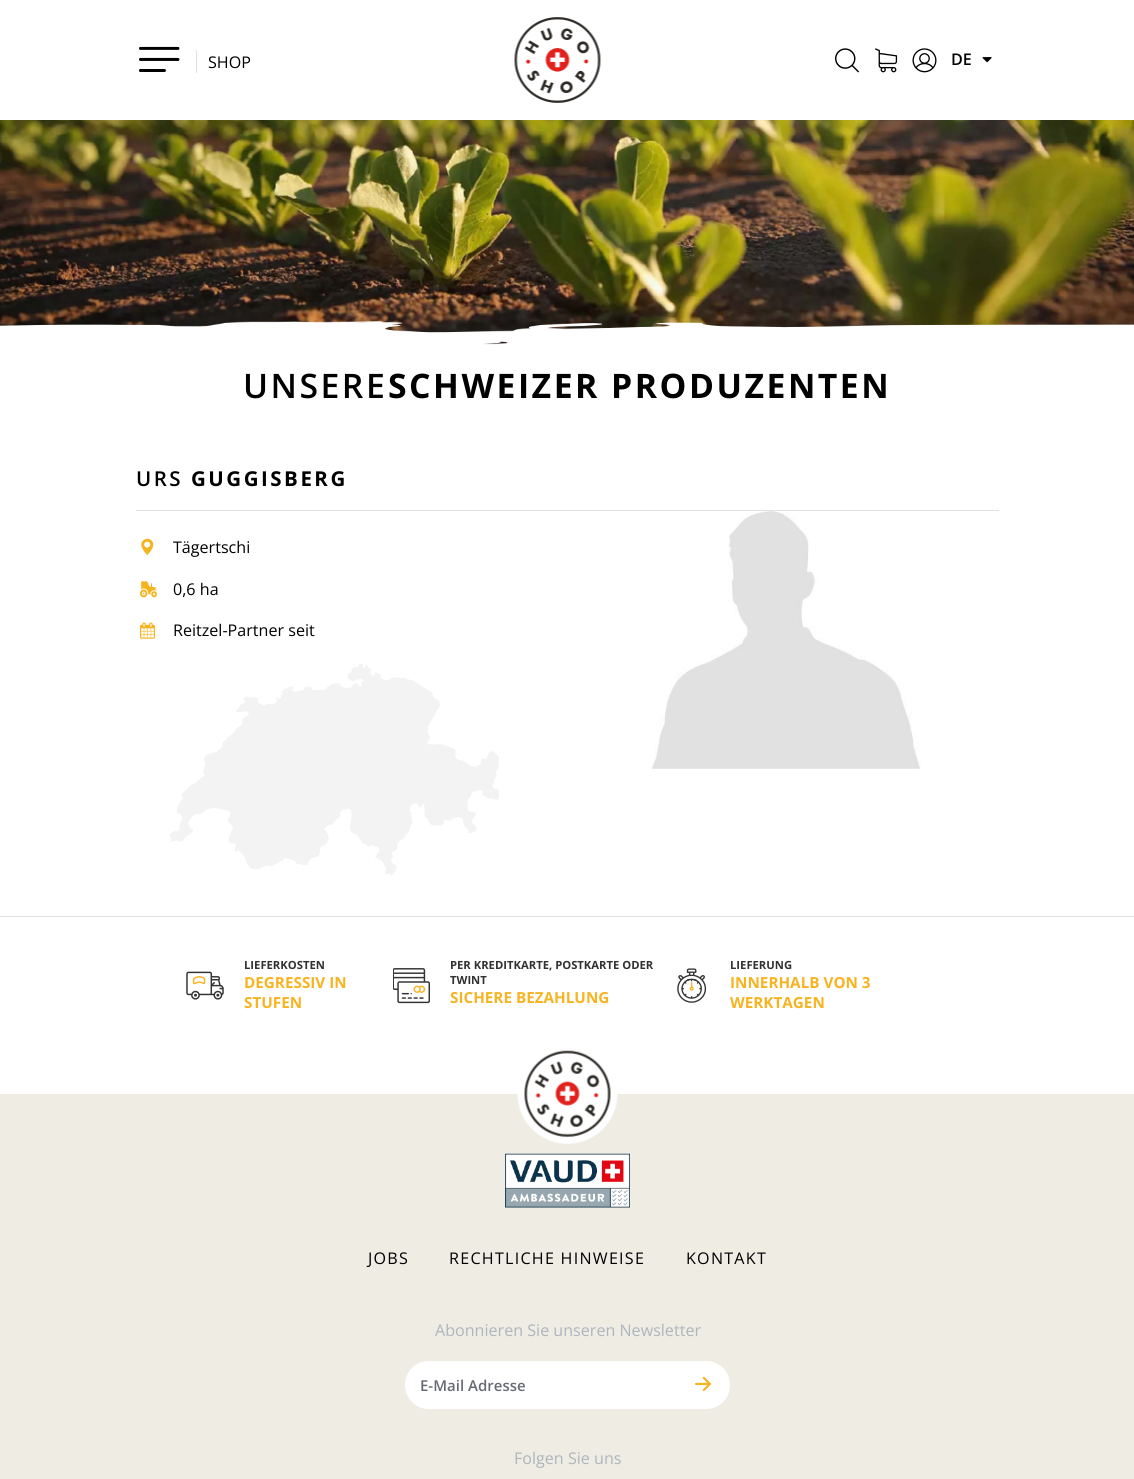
#include <cairo.h>
#include <math.h>
#include <stddef.h>


static void spaced_text(cairo_t *cr, double x, double y, const char *s, double letter, double word) {
    cairo_move_to(cr, x, y);
    while (*s) {
        char ch[5] = {0};
        int n = 0;
        do ch[n++] = *s++; while ((*s & 0xC0) == 0x80);
        cairo_show_text(cr, ch);
        cairo_rel_move_to(cr, letter + word * (*ch == ' '), 0);
    }
}

static void picture(cairo_t *cr, const char *path, double x, double y, double w, double h) {
    cairo_surface_t *image = cairo_image_surface_create_from_png(path);
    cairo_save(cr);
    cairo_set_source_surface(cr, image, x, y);
    cairo_rectangle(cr, x, y, w, h);
    cairo_fill(cr);
    cairo_restore(cr);
    cairo_surface_destroy(image);
}

int main(void) {
    cairo_surface_t *surface = cairo_image_surface_create(CAIRO_FORMAT_RGB24, 1134, 1479);
    cairo_t *cr = cairo_create(surface);
    cairo_font_options_t *options = cairo_font_options_create();
    cairo_font_options_set_hint_metrics(options, CAIRO_HINT_METRICS_OFF);
    cairo_font_options_set_hint_style(options, CAIRO_HINT_STYLE_NONE);
    cairo_set_font_options(cr, options);
    cairo_set_miter_limit(cr, 4);
    cairo_set_source_rgb(cr, 1, 1, 1);
    cairo_paint(cr);
    picture(cr, "img1.png", 139, 46, 41, 26);
    cairo_select_font_face(cr, "Open Sans", CAIRO_FONT_SLANT_NORMAL, CAIRO_FONT_WEIGHT_NORMAL);
    cairo_set_font_size(cr, 16.1);
    cairo_set_source_rgb(cr, 0, 0, 0);
    cairo_move_to(cr, 208, 68);
    cairo_show_text(cr, "SHOP");
    cairo_set_source_rgb(cr, 0.871, 0.886, 0.902);
    cairo_rectangle(cr, 196, 50, 1, 23);
    cairo_fill(cr);
    picture(cr, "img2.png", 514, 17, 87, 86);
    picture(cr, "img3.png", 835, 48, 24, 25);
    picture(cr, "img4.png", 875, 48, 23, 25);
    picture(cr, "img5.png", 912, 48, 25, 25);
    cairo_select_font_face(cr, "Open Sans SemiBold", CAIRO_FONT_SLANT_NORMAL, CAIRO_FONT_WEIGHT_NORMAL);
    cairo_set_source_rgb(cr, 0, 0, 0);
    cairo_move_to(cr, 951, 65);
    cairo_show_text(cr, "DE");
    picture(cr, "img6.png", 982, 57, 10, 6);
    picture(cr, "img7.png", 0, 120, 1134, 225);
    picture(cr, "img8.png", 0, 321, 1134, 24);
    cairo_set_font_size(cr, 33.75);
    spaced_text(cr, 243, 398, "UNSERE", 2.5, 0);
    cairo_select_font_face(cr, "Open Sans", CAIRO_FONT_SLANT_NORMAL, CAIRO_FONT_WEIGHT_BOLD);
    spaced_text(cr, 388, 398, "SCHWEIZER PRODUZENTEN", 2.5, 0);
    cairo_set_source_rgb(cr, 0.871, 0.886, 0.902);
    cairo_rectangle(cr, 136, 510, 863, 1);
    cairo_fill(cr);
    cairo_select_font_face(cr, "Open Sans SemiBold", CAIRO_FONT_SLANT_NORMAL, CAIRO_FONT_WEIGHT_NORMAL);
    cairo_set_font_size(cr, 20.5);
    cairo_set_source_rgb(cr, 0, 0, 0);
    spaced_text(cr, 136, 486, "URS", 2.5, 0);
    cairo_select_font_face(cr, "Open Sans", CAIRO_FONT_SLANT_NORMAL, CAIRO_FONT_WEIGHT_BOLD);
    spaced_text(cr, 191, 486, "GUGGISBERG", 2.5, 0);
    picture(cr, "img9.png", 141, 538, 13, 17);
    cairo_select_font_face(cr, "Open Sans", CAIRO_FONT_SLANT_NORMAL, CAIRO_FONT_WEIGHT_NORMAL);
    cairo_set_font_size(cr, 16.1);
    cairo_move_to(cr, 173, 553);
    cairo_show_text(cr, "Tägertschi");
    picture(cr, "img10.png", 140, 581, 17, 17);
    cairo_move_to(cr, 173, 595);
    cairo_show_text(cr, "0,6 ha");
    picture(cr, "img11.png", 140, 622, 15, 17);
    cairo_move_to(cr, 173, 636);
    cairo_show_text(cr, "Reitzel-Partner seit");
    picture(cr, "img12.png", 169, 664, 330, 211);
    picture(cr, "img13.png", 651, 511, 270, 258);
    cairo_set_source_rgb(cr, 0.871, 0.886, 0.902);
    cairo_rectangle(cr, 0, 916, 1134, 1);
    cairo_fill(cr);
    picture(cr, "img14.png", 186, 971, 38, 29);
    cairo_select_font_face(cr, "Open Sans", CAIRO_FONT_SLANT_NORMAL, CAIRO_FONT_WEIGHT_BOLD);
    cairo_set_font_size(cr, 11.25);
    cairo_set_source_rgb(cr, 0.2, 0.192, 0.192);
    cairo_move_to(cr, 244, 969);
    cairo_show_text(cr, "LIEFERKOSTEN");
    cairo_set_font_size(cr, 15.25);
    cairo_set_source_rgb(cr, 0.965, 0.702, 0.125);
    cairo_move_to(cr, 244, 988);
    cairo_show_text(cr, "DEGRESSIV IN");
    cairo_move_to(cr, 244, 1008);
    cairo_show_text(cr, "STUFEN");
    picture(cr, "img15.png", 393, 968, 37, 36);
    cairo_set_font_size(cr, 11.25);
    cairo_set_source_rgb(cr, 0.2, 0.192, 0.192);
    cairo_move_to(cr, 450, 969);
    cairo_show_text(cr, "PER KREDITKARTE, POSTKARTE ODER");
    cairo_move_to(cr, 450, 984);
    cairo_show_text(cr, "TWINT");
    cairo_set_font_size(cr, 15.25);
    cairo_set_source_rgb(cr, 0.965, 0.702, 0.125);
    cairo_move_to(cr, 450, 1003);
    cairo_show_text(cr, "SICHERE BEZAHLUNG");
    picture(cr, "img16.png", 677, 968, 30, 35);
    cairo_set_font_size(cr, 11.25);
    cairo_set_source_rgb(cr, 0.2, 0.192, 0.192);
    cairo_move_to(cr, 730, 969);
    cairo_show_text(cr, "LIEFERUNG");
    cairo_set_font_size(cr, 15.25);
    cairo_set_source_rgb(cr, 0.965, 0.702, 0.125);
    cairo_move_to(cr, 730, 988);
    cairo_show_text(cr, "INNERHALB VON 3");
    cairo_move_to(cr, 730, 1008);
    cairo_show_text(cr, "WERKTAGEN");
    cairo_set_source_rgb(cr, 0.937, 0.925, 0.894);
    cairo_rectangle(cr, 0, 1094, 1134, 385);
    cairo_fill(cr);
    picture(cr, "img17.png", 517, 1050, 101, 94);
    picture(cr, "img18.png", 505, 1153, 125, 55);
    cairo_select_font_face(cr, "Open Sans", CAIRO_FONT_SLANT_NORMAL, CAIRO_FONT_WEIGHT_NORMAL);
    cairo_set_font_size(cr, 16.1);
    cairo_set_source_rgb(cr, 0, 0, 0);
    spaced_text(cr, 368, 1264, "JOBS", 1.25, 0);
    spaced_text(cr, 449, 1264, "RECHTLICHE HINWEISE", 1.25, 0);
    spaced_text(cr, 686, 1264, "KONTAKT", 1.25, 0);
    cairo_set_source_rgb(cr, 0.678, 0.71, 0.741);
    cairo_move_to(cr, 435, 1336);
    cairo_show_text(cr, "Abonnieren Sie unseren Newsletter");
    cairo_set_source_rgb(cr, 1, 1, 1);
    cairo_new_path(cr);
    cairo_move_to(cr, 675, 1361);
    cairo_line_to(cr, 706, 1361);
    cairo_curve_to(cr, 719.5, 1361, 730, 1371.5, 730, 1385);
    cairo_curve_to(cr, 730, 1398.5, 719.5, 1409, 706, 1409);
    cairo_line_to(cr, 675, 1409);
    cairo_close_path(cr);
    cairo_fill(cr);
    cairo_new_path(cr);
    cairo_move_to(cr, 429, 1361);
    cairo_line_to(cr, 678, 1361);
    cairo_line_to(cr, 678, 1409);
    cairo_line_to(cr, 429, 1409);
    cairo_curve_to(cr, 415.5, 1409, 405, 1398.5, 405, 1385);
    cairo_curve_to(cr, 405, 1371.5, 415.5, 1361, 429, 1361);
    cairo_close_path(cr);
    cairo_fill(cr);
    cairo_select_font_face(cr, "Open Sans SemiBold", CAIRO_FONT_SLANT_NORMAL, CAIRO_FONT_WEIGHT_NORMAL);
    cairo_set_font_size(cr, 15);
    cairo_set_source_rgb(cr, 0.408, 0.416, 0.451);
    cairo_move_to(cr, 420, 1391);
    cairo_show_text(cr, "E-Mail Adresse");
    picture(cr, "img19.png", 695, 1376, 17, 16);
    cairo_select_font_face(cr, "Open Sans", CAIRO_FONT_SLANT_NORMAL, CAIRO_FONT_WEIGHT_NORMAL);
    cairo_set_font_size(cr, 16.1);
    cairo_set_source_rgb(cr, 0.678, 0.71, 0.741);
    cairo_move_to(cr, 514, 1464);
    cairo_show_text(cr, "Folgen Sie uns");
    cairo_surface_write_to_png(surface, "page.png");
    cairo_font_options_destroy(options);
    cairo_destroy(cr);
    cairo_surface_destroy(surface);
    return 0;
}
